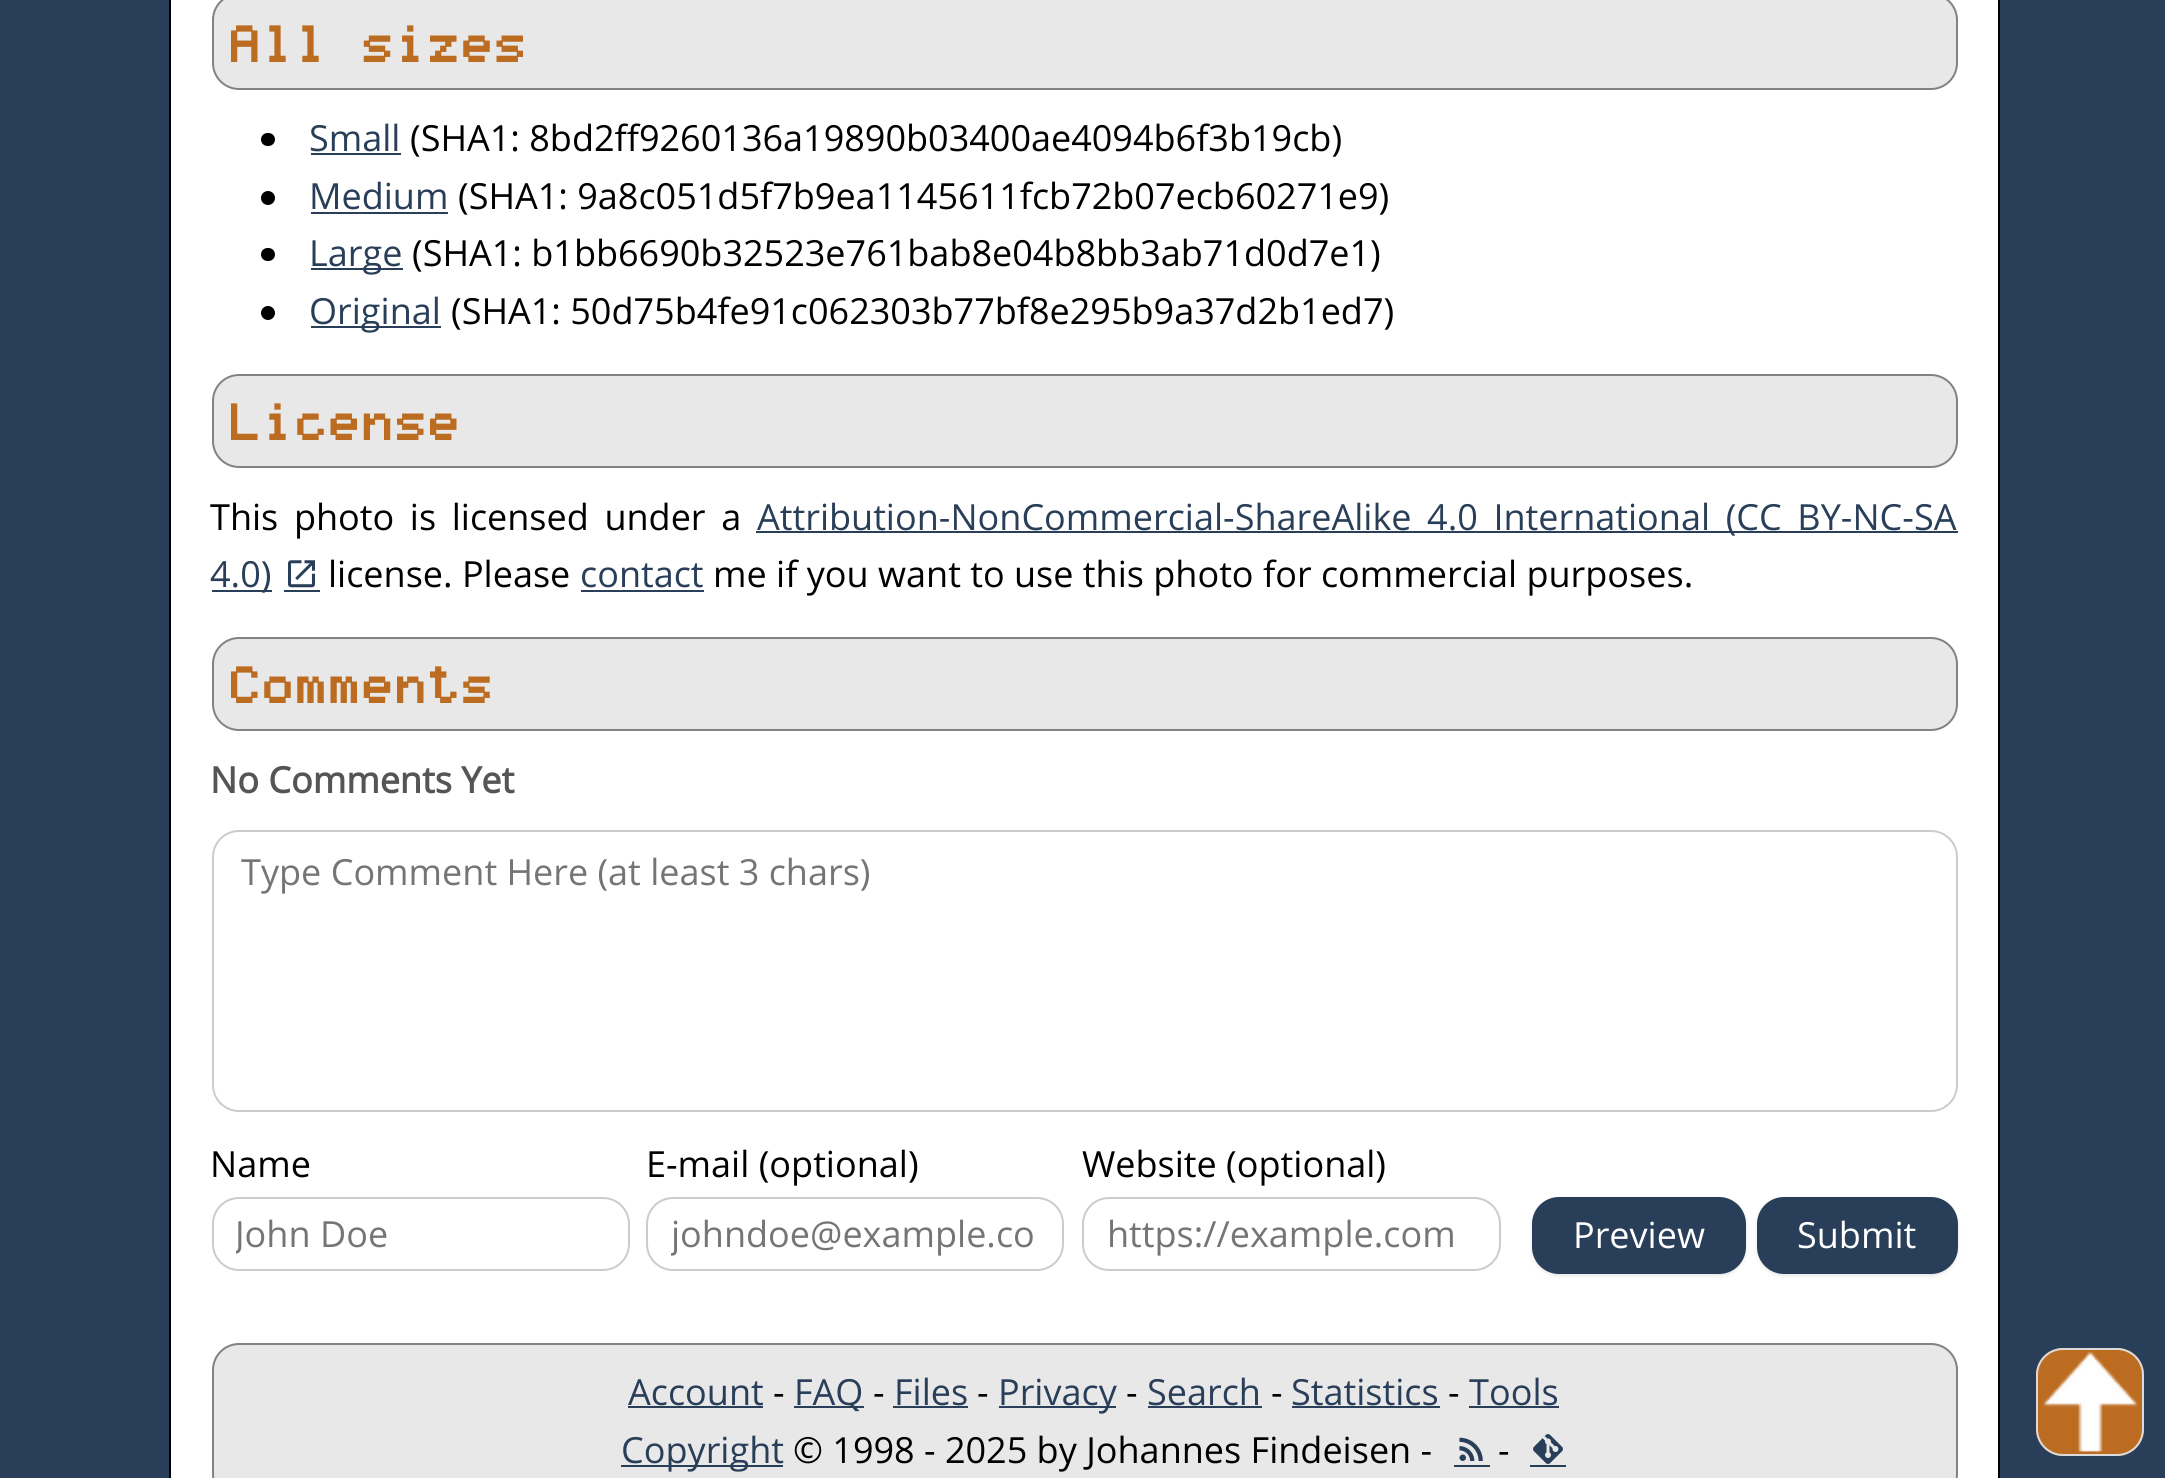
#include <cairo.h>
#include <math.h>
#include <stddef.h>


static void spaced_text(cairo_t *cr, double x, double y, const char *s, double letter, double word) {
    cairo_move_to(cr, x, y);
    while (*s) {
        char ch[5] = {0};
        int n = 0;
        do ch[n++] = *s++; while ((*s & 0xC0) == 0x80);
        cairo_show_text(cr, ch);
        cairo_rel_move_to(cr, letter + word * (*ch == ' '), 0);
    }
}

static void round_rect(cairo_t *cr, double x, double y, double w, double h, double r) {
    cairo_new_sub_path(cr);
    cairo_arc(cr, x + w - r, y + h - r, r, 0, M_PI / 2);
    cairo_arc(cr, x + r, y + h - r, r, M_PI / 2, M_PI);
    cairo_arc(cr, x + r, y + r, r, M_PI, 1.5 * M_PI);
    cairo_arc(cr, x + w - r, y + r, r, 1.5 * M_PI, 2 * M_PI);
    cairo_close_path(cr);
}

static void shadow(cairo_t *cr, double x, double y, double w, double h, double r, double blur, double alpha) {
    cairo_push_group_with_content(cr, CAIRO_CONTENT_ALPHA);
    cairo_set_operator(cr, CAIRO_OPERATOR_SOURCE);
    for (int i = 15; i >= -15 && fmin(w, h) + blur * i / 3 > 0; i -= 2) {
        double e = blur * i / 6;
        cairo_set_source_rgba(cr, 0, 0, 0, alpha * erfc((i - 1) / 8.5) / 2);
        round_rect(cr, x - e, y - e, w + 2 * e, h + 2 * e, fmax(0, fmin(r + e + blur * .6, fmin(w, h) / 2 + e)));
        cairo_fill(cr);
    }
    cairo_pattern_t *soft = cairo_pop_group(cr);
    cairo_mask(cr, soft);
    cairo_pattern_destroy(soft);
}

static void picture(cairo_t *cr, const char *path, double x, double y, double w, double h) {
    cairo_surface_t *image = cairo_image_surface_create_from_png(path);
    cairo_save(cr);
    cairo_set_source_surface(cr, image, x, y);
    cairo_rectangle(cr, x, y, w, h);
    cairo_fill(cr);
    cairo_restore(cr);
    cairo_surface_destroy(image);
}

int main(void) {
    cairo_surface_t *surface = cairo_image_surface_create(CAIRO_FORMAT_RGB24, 2165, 1478);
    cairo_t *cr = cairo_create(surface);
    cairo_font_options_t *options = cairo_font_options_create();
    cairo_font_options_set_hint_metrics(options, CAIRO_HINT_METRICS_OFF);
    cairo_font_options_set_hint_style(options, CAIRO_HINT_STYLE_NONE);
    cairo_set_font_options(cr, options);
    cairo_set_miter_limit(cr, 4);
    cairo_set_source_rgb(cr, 0.161, 0.243, 0.345);
    cairo_paint(cr);
    cairo_set_source_rgb(cr, 1, 1, 1);
    cairo_rectangle(cr, 170, -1, 1829, 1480);
    cairo_fill_preserve(cr);
    cairo_set_source_rgb(cr, 0, 0, 0);
    cairo_stroke(cr);
    cairo_set_source_rgb(cr, 0.91, 0.91, 0.91);
    round_rect(cr, 213, -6, 1744, 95, 26);
    cairo_fill_preserve(cr);
    cairo_set_source_rgb(cr, 0.51, 0.51, 0.51);
    cairo_stroke(cr);
    cairo_select_font_face(cr, "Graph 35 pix", CAIRO_FONT_SLANT_NORMAL, CAIRO_FONT_WEIGHT_BOLD);
    cairo_set_font_size(cr, 40.5);
    cairo_set_source_rgb(cr, 0.737, 0.424, 0.129);
    cairo_move_to(cr, 231, 62);
    cairo_show_text(cr, "All sizes");
    cairo_set_source_rgb(cr, 0, 0, 0);
    round_rect(cr, 261, 133, 14, 13, 6.5);
    cairo_fill(cr);
    cairo_select_font_face(cr, "Open Sans", CAIRO_FONT_SLANT_NORMAL, CAIRO_FONT_WEIGHT_NORMAL);
    cairo_set_font_size(cr, 36);
    cairo_set_source_rgb(cr, 0.161, 0.243, 0.345);
    cairo_move_to(cr, 309, 151);
    cairo_show_text(cr, "Small");
    cairo_rectangle(cr, 311, 153, 90, 2);
    cairo_fill(cr);
    cairo_set_source_rgb(cr, 0, 0, 0);
    cairo_move_to(cr, 410, 151);
    cairo_show_text(cr, "(SHA1: 8bd2ff9260136a19890b03400ae4094b6f3b19cb)");
    cairo_new_path(cr);
    cairo_arc(cr, 268, 198, 7, 0, 2 * M_PI);
    cairo_fill(cr);
    cairo_set_source_rgb(cr, 0.161, 0.243, 0.345);
    cairo_move_to(cr, 309, 209);
    cairo_show_text(cr, "Medium");
    cairo_rectangle(cr, 311, 212, 137, 2);
    cairo_fill(cr);
    cairo_set_source_rgb(cr, 0, 0, 0);
    cairo_move_to(cr, 458, 209);
    cairo_show_text(cr, "(SHA1: 9a8c051d5f7b9ea1145611fcb72b07ecb60271e9)");
    round_rect(cr, 261, 248, 14, 13, 6.5);
    cairo_fill(cr);
    cairo_set_source_rgb(cr, 0.161, 0.243, 0.345);
    cairo_rectangle(cr, 311, 268, 92, 2);
    cairo_fill(cr);
    cairo_move_to(cr, 309, 266);
    cairo_show_text(cr, "Large");
    cairo_set_source_rgb(cr, 0, 0, 0);
    cairo_move_to(cr, 412, 266);
    cairo_show_text(cr, "(SHA1: b1bb6690b32523e761bab8e04b8bb3ab71d0d7e1)");
    cairo_new_path(cr);
    cairo_arc(cr, 268, 313, 7, 0, 2 * M_PI);
    cairo_fill(cr);
    cairo_set_source_rgb(cr, 0.161, 0.243, 0.345);
    cairo_rectangle(cr, 311, 326, 130, 2);
    cairo_fill(cr);
    cairo_move_to(cr, 309, 324);
    cairo_show_text(cr, "Original");
    cairo_set_source_rgb(cr, 0, 0, 0);
    cairo_move_to(cr, 451, 324);
    cairo_show_text(cr, "(SHA1: 50d75b4fe91c062303b77bf8e295b9a37d2b1ed7)");
    cairo_set_source_rgb(cr, 0.91, 0.91, 0.91);
    round_rect(cr, 213, 375, 1744, 92, 26);
    cairo_fill_preserve(cr);
    cairo_set_source_rgb(cr, 0.51, 0.51, 0.51);
    cairo_stroke(cr);
    cairo_select_font_face(cr, "Graph 35 pix", CAIRO_FONT_SLANT_NORMAL, CAIRO_FONT_WEIGHT_BOLD);
    cairo_set_font_size(cr, 40.5);
    cairo_set_source_rgb(cr, 0.737, 0.424, 0.129);
    cairo_move_to(cr, 231, 440);
    cairo_show_text(cr, "License");
    cairo_select_font_face(cr, "Open Sans", CAIRO_FONT_SLANT_NORMAL, CAIRO_FONT_WEIGHT_NORMAL);
    cairo_set_font_size(cr, 36);
    cairo_set_source_rgb(cr, 0, 0, 0);
    spaced_text(cr, 210, 530, "This photo is licensed under a", 0, 6.25);
    cairo_set_source_rgb(cr, 0.161, 0.243, 0.345);
    cairo_rectangle(cr, 756, 531, 1202, 2);
    cairo_fill(cr);
    spaced_text(cr, 757, 530, "Attribution-NonCommercial-ShareAlike 4.0 International (CC BY-NC-SA", 0, 6.25);
    cairo_rectangle(cr, 212, 590, 60, 2);
    cairo_fill(cr);
    cairo_move_to(cr, 210, 587);
    cairo_show_text(cr, "4.0)");
    cairo_rectangle(cr, 284, 590, 36, 2);
    cairo_fill(cr);
    picture(cr, "img1.png", 288, 560, 27, 28);
    cairo_set_source_rgb(cr, 0, 0, 0);
    cairo_move_to(cr, 328, 587);
    cairo_show_text(cr, "license. Please");
    cairo_set_source_rgb(cr, 0.161, 0.243, 0.345);
    cairo_move_to(cr, 580, 587);
    cairo_show_text(cr, "contact");
    cairo_rectangle(cr, 581, 590, 123, 2);
    cairo_fill(cr);
    cairo_set_source_rgb(cr, 0, 0, 0);
    cairo_move_to(cr, 713, 587);
    cairo_show_text(cr, "me if you want to use this photo for commercial purposes.");
    cairo_set_source_rgb(cr, 0.91, 0.91, 0.91);
    round_rect(cr, 213, 638, 1744, 92, 26);
    cairo_fill_preserve(cr);
    cairo_set_source_rgb(cr, 0.51, 0.51, 0.51);
    cairo_stroke(cr);
    cairo_select_font_face(cr, "Graph 35 pix", CAIRO_FONT_SLANT_NORMAL, CAIRO_FONT_WEIGHT_BOLD);
    cairo_set_font_size(cr, 40.5);
    cairo_set_source_rgb(cr, 0.737, 0.424, 0.129);
    cairo_move_to(cr, 231, 703);
    cairo_show_text(cr, "Comments");
    cairo_select_font_face(cr, "Open Sans", CAIRO_FONT_SLANT_NORMAL, CAIRO_FONT_WEIGHT_BOLD);
    cairo_set_font_size(cr, 36);
    cairo_set_source_rgb(cr, 0.333, 0.333, 0.333);
    cairo_move_to(cr, 210, 793);
    cairo_show_text(cr, "No Comments Yet");
    round_rect(cr, 213, 831, 1744, 280, 26);
    cairo_set_source_rgb(cr, 0.8, 0.8, 0.8);
    cairo_stroke(cr);
    cairo_select_font_face(cr, "Open Sans", CAIRO_FONT_SLANT_NORMAL, CAIRO_FONT_WEIGHT_NORMAL);
    cairo_set_source_rgb(cr, 0.459, 0.459, 0.459);
    cairo_move_to(cr, 241, 885);
    cairo_show_text(cr, "Type Comment Here (at least 3 chars)");
    cairo_set_source_rgb(cr, 0, 0, 0);
    cairo_move_to(cr, 210, 1177);
    cairo_show_text(cr, "Name");
    round_rect(cr, 213, 1198, 416, 72, 26);
    cairo_set_source_rgb(cr, 0.8, 0.8, 0.8);
    cairo_stroke(cr);
    cairo_save(cr);
    cairo_rectangle(cr, 236, 1208, 369, 50);
    cairo_clip(cr);
    cairo_set_source_rgb(cr, 0.459, 0.459, 0.459);
    cairo_move_to(cr, 235, 1247);
    cairo_show_text(cr, "John Doe");
    cairo_restore(cr);
    cairo_set_source_rgb(cr, 0, 0, 0);
    cairo_move_to(cr, 646, 1177);
    cairo_show_text(cr, "E-mail (optional)");
    round_rect(cr, 647, 1198, 416, 72, 26);
    cairo_set_source_rgb(cr, 0.8, 0.8, 0.8);
    cairo_stroke(cr);
    cairo_save(cr);
    cairo_rectangle(cr, 671, 1208, 369, 50);
    cairo_clip(cr);
    cairo_set_source_rgb(cr, 0.459, 0.459, 0.459);
    cairo_move_to(cr, 671, 1247);
    cairo_show_text(cr, "johndoe@example.co");
    cairo_restore(cr);
    cairo_set_source_rgb(cr, 0, 0, 0);
    cairo_move_to(cr, 1082, 1177);
    cairo_show_text(cr, "Website (optional)");
    round_rect(cr, 1083, 1198, 417, 72, 26);
    cairo_set_source_rgb(cr, 0.8, 0.8, 0.8);
    cairo_stroke(cr);
    cairo_set_source_rgb(cr, 0.459, 0.459, 0.459);
    cairo_move_to(cr, 1107, 1247);
    cairo_show_text(cr, "https://example.com");
    cairo_set_source_rgb(cr, 0, 0, 0);
    shadow(cr, 1532, 1199, 214, 77, 27, 2, 0.1);
    cairo_set_source_rgb(cr, 0.161, 0.243, 0.345);
    round_rect(cr, 1532, 1197, 214, 77, 27);
    cairo_fill(cr);
    cairo_set_source_rgb(cr, 1, 1, 1);
    cairo_move_to(cr, 1573, 1248);
    cairo_show_text(cr, "Preview");
    cairo_set_source_rgb(cr, 0, 0, 0);
    shadow(cr, 1757, 1199, 201, 77, 27, 2, 0.1);
    cairo_set_source_rgb(cr, 0.161, 0.243, 0.345);
    round_rect(cr, 1757, 1197, 201, 77, 27);
    cairo_fill(cr);
    cairo_set_source_rgb(cr, 1, 1, 1);
    cairo_move_to(cr, 1797, 1248);
    cairo_show_text(cr, "Submit");
    cairo_set_source_rgb(cr, 0.91, 0.91, 0.91);
    round_rect(cr, 213, 1344, 1744, 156, 26);
    cairo_fill_preserve(cr);
    cairo_set_source_rgb(cr, 0.51, 0.51, 0.51);
    cairo_stroke(cr);
    cairo_set_source_rgb(cr, 0.161, 0.243, 0.345);
    cairo_move_to(cr, 628, 1405);
    cairo_show_text(cr, "Account");
    cairo_rectangle(cr, 628, 1406, 135, 2);
    cairo_fill(cr);
    cairo_set_source_rgb(cr, 0, 0, 0);
    cairo_move_to(cr, 773, 1405);
    cairo_show_text(cr, "-");
    cairo_set_source_rgb(cr, 0.161, 0.243, 0.345);
    cairo_rectangle(cr, 794, 1406, 70, 2);
    cairo_fill(cr);
    cairo_move_to(cr, 794, 1405);
    cairo_show_text(cr, "FAQ");
    cairo_set_source_rgb(cr, 0, 0, 0);
    cairo_move_to(cr, 873, 1405);
    cairo_show_text(cr, "-");
    cairo_set_source_rgb(cr, 0.161, 0.243, 0.345);
    cairo_move_to(cr, 894, 1405);
    cairo_show_text(cr, "Files");
    cairo_rectangle(cr, 893, 1406, 75, 2);
    cairo_fill(cr);
    cairo_set_source_rgb(cr, 0, 0, 0);
    cairo_move_to(cr, 977, 1405);
    cairo_show_text(cr, "-");
    cairo_set_source_rgb(cr, 0.161, 0.243, 0.345);
    cairo_rectangle(cr, 999, 1406, 117, 2);
    cairo_fill(cr);
    cairo_move_to(cr, 998, 1405);
    cairo_show_text(cr, "Privacy");
    cairo_set_source_rgb(cr, 0, 0, 0);
    cairo_move_to(cr, 1126, 1405);
    cairo_show_text(cr, "-");
    cairo_set_source_rgb(cr, 0.161, 0.243, 0.345);
    cairo_move_to(cr, 1147, 1405);
    cairo_show_text(cr, "Search");
    cairo_rectangle(cr, 1148, 1406, 114, 2);
    cairo_fill(cr);
    cairo_set_source_rgb(cr, 0, 0, 0);
    cairo_move_to(cr, 1271, 1405);
    cairo_show_text(cr, "-");
    cairo_set_source_rgb(cr, 0.161, 0.243, 0.345);
    cairo_move_to(cr, 1291, 1405);
    cairo_show_text(cr, "Statistics");
    cairo_rectangle(cr, 1292, 1406, 148, 2);
    cairo_fill(cr);
    cairo_set_source_rgb(cr, 0, 0, 0);
    cairo_move_to(cr, 1448, 1405);
    cairo_show_text(cr, "-");
    cairo_set_source_rgb(cr, 0.161, 0.243, 0.345);
    cairo_move_to(cr, 1469, 1405);
    cairo_show_text(cr, "Tools");
    cairo_rectangle(cr, 1469, 1406, 90, 2);
    cairo_fill(cr);
    cairo_rectangle(cr, 621, 1465, 162, 2);
    cairo_fill(cr);
    cairo_move_to(cr, 621, 1463);
    cairo_show_text(cr, "Copyright");
    cairo_set_source_rgb(cr, 0, 0, 0);
    cairo_move_to(cr, 793, 1463);
    cairo_show_text(cr, "© 1998 - 2025 by Johannes Findeisen -");
    picture(cr, "img2.png", 1459, 1437, 24, 24);
    cairo_move_to(cr, 1498, 1463);
    cairo_show_text(cr, "-");
    picture(cr, "img3.png", 1533, 1434, 30, 30);
    cairo_set_source_rgb(cr, 0.161, 0.243, 0.345);
    cairo_rectangle(cr, 1454, 1465, 36, 2);
    cairo_fill(cr);
    cairo_rectangle(cr, 1530, 1465, 36, 2);
    cairo_fill(cr);
    cairo_set_source_rgb(cr, 0.737, 0.424, 0.129);
    round_rect(cr, 2036, 1348, 108, 108, 27);
    cairo_fill(cr);
    picture(cr, "img4.png", 2043, 1351, 95, 101);
    round_rect(cr, 2037, 1349, 106, 106, 26);
    cairo_set_source_rgb(cr, 0.859, 0.859, 0.859);
    cairo_stroke(cr);
    cairo_surface_write_to_png(surface, "page.png");
    cairo_font_options_destroy(options);
    cairo_destroy(cr);
    cairo_surface_destroy(surface);
    return 0;
}
